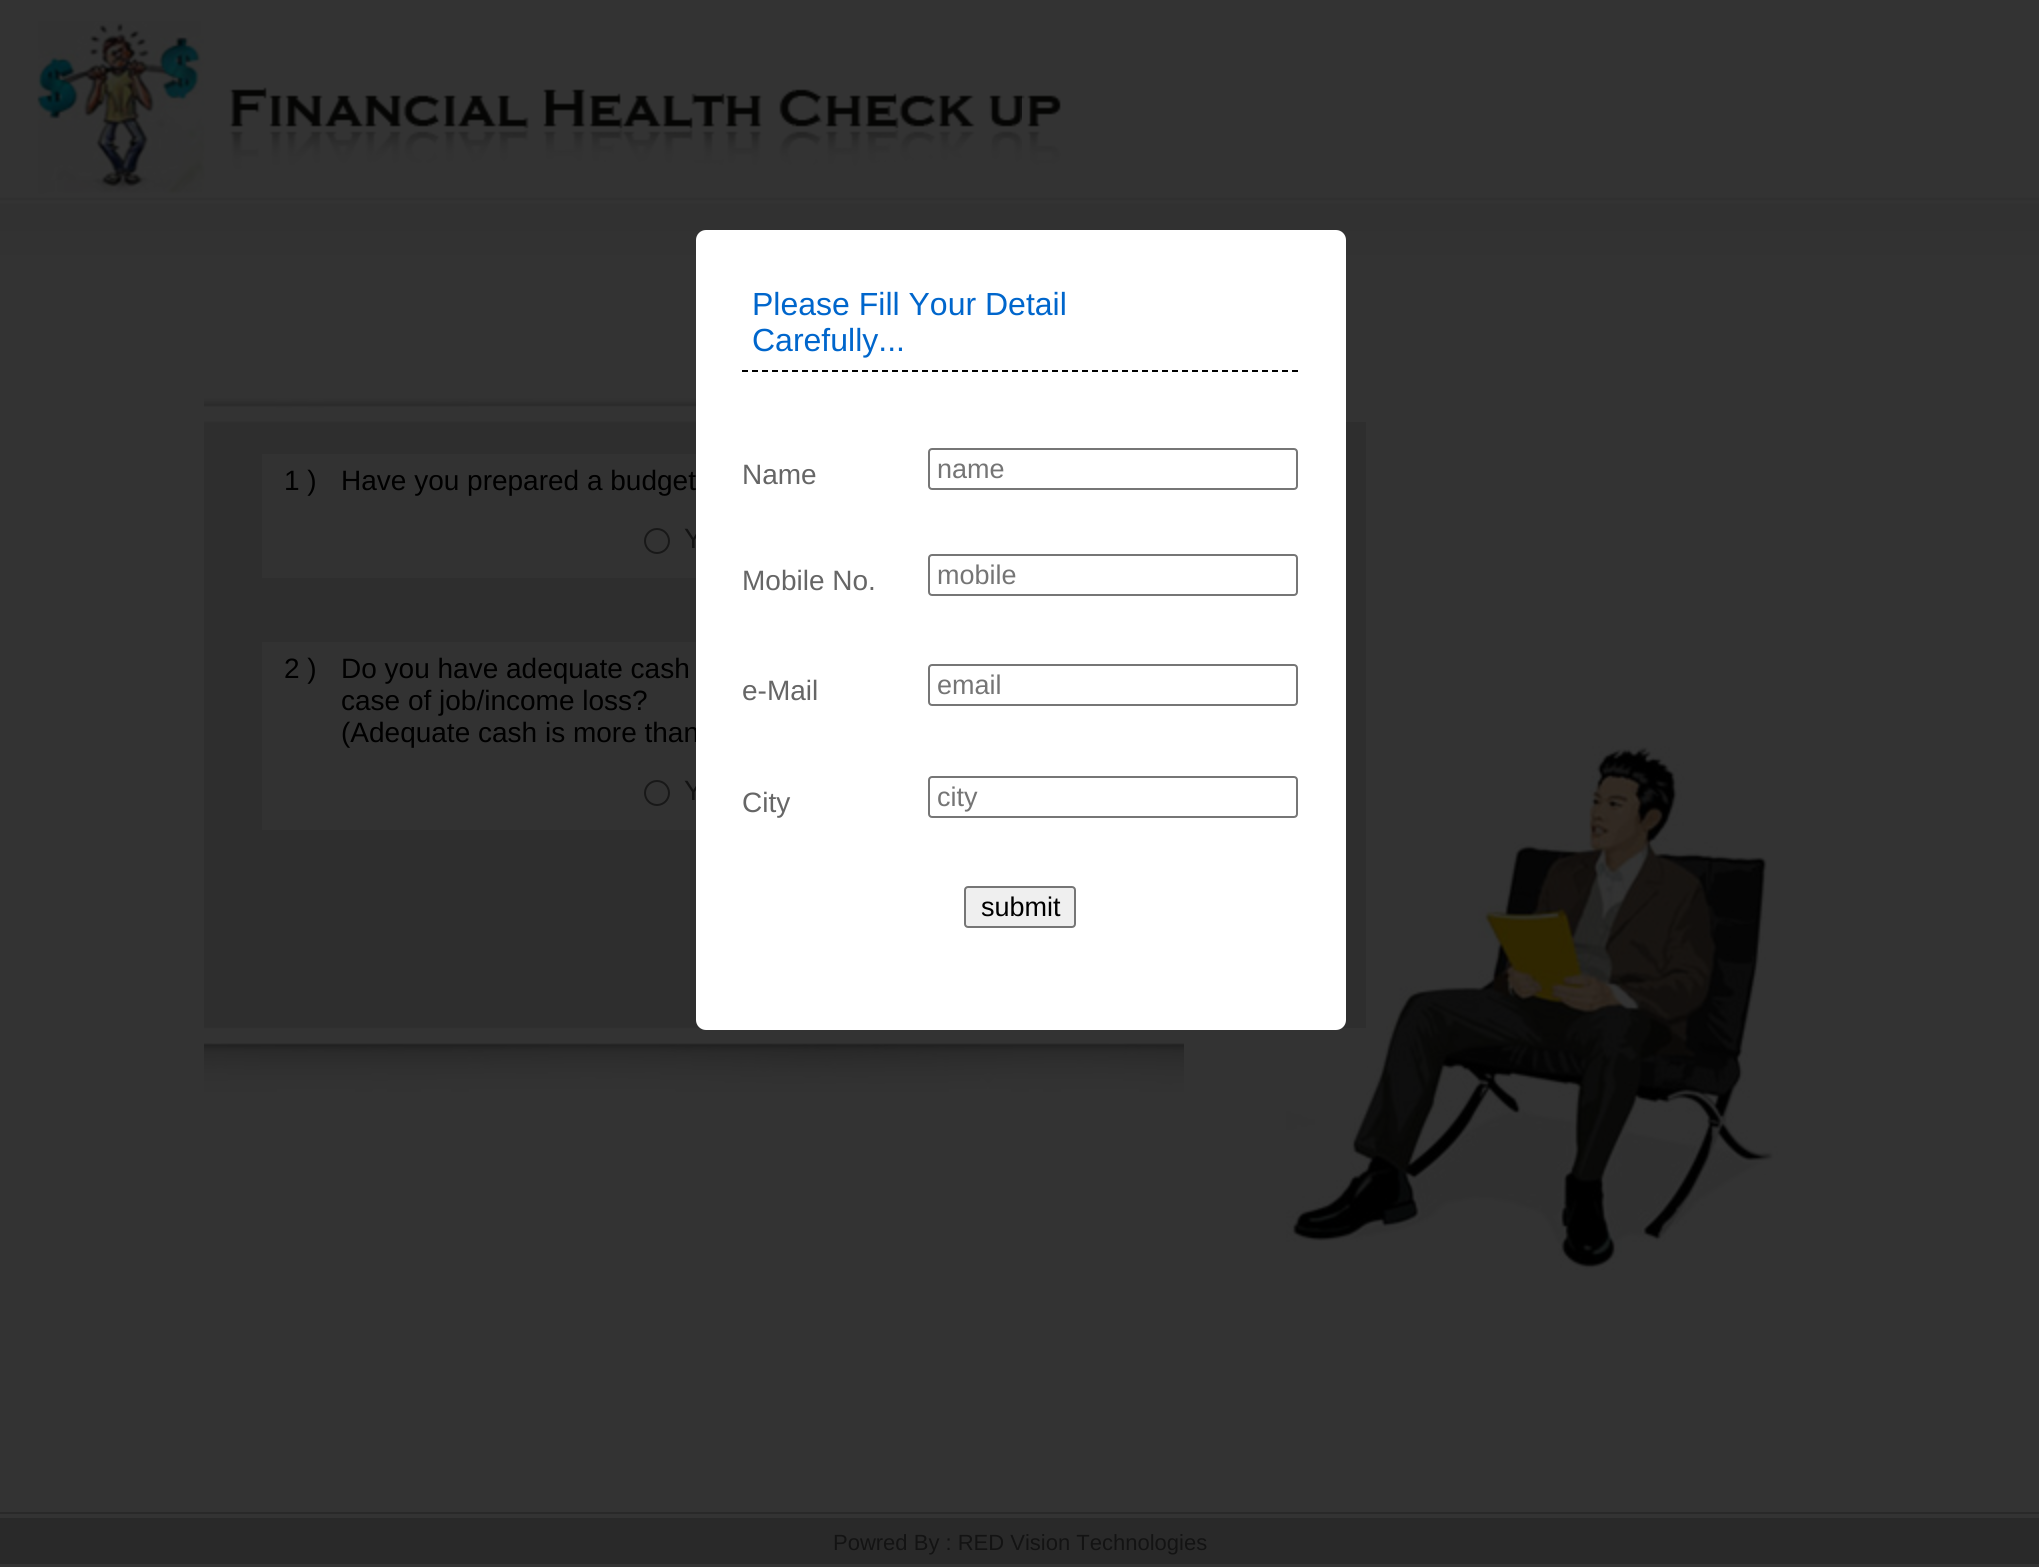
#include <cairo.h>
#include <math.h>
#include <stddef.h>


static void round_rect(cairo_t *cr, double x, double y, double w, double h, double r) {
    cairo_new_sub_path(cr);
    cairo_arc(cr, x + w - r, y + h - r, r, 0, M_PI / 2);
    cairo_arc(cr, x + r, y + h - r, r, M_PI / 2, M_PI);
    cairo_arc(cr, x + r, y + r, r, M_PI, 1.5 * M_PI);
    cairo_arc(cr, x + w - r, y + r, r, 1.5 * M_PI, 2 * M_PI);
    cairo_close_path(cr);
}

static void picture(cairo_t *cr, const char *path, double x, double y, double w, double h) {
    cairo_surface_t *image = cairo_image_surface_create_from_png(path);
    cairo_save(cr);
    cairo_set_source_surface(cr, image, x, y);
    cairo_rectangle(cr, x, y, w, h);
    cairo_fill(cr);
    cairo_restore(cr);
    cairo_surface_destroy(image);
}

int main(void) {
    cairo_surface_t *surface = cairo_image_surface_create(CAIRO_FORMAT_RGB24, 2039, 1567);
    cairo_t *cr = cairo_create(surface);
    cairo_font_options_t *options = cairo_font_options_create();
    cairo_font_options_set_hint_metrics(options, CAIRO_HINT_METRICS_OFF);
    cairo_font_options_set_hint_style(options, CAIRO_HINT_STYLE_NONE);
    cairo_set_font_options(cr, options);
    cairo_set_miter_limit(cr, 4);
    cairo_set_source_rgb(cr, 0.2, 0.2, 0.2);
    cairo_paint(cr);
    picture(cr, "img1.png", 0, 197, 2039, 58);
    picture(cr, "img2.png", 37, 21, 1024, 173);
    picture(cr, "img3.png", 204, 398, 980, 694);
    picture(cr, "img4.png", 1286, 746, 492, 524);
    cairo_set_source_rgb(cr, 0.18, 0.18, 0.18);
    cairo_rectangle(cr, 1184, 904, 182, 124);
    cairo_fill(cr);
    cairo_rectangle(cr, 1184, 422, 182, 482);
    cairo_fill(cr);
    cairo_set_source_rgb(cr, 0.196, 0.196, 0.196);
    cairo_rectangle(cr, 262, 454, 434, 124);
    cairo_fill(cr);
    cairo_select_font_face(cr, "Liberation Sans", CAIRO_FONT_SLANT_NORMAL, CAIRO_FONT_WEIGHT_NORMAL);
    cairo_set_font_size(cr, 28);
    cairo_set_source_rgb(cr, 0, 0, 0);
    cairo_move_to(cr, 284, 490);
    cairo_show_text(cr, "1 )");
    cairo_move_to(cr, 341, 490);
    cairo_show_text(cr, "Have you prepared a budget");
    cairo_new_path(cr);
    cairo_arc(cr, 657, 541, 12, 0, 2 * M_PI);
    cairo_set_source_rgb(cr, 0.094, 0.094, 0.094);
    cairo_stroke(cr);
    cairo_set_source_rgb(cr, 0.078, 0.078, 0.078);
    cairo_move_to(cr, 684, 548);
    cairo_show_text(cr, "Y");
    cairo_set_source_rgb(cr, 0.196, 0.196, 0.196);
    cairo_rectangle(cr, 262, 642, 434, 188);
    cairo_fill(cr);
    cairo_set_source_rgb(cr, 0, 0, 0);
    cairo_move_to(cr, 284, 678);
    cairo_show_text(cr, "2 )");
    cairo_move_to(cr, 341, 678);
    cairo_show_text(cr, "Do you have adequate cash");
    cairo_move_to(cr, 341, 710);
    cairo_show_text(cr, "case of job/income loss?");
    cairo_move_to(cr, 341, 742);
    cairo_show_text(cr, "(Adequate cash is more than");
    cairo_new_path(cr);
    cairo_arc(cr, 657, 793, 12, 0, 2 * M_PI);
    cairo_set_source_rgb(cr, 0.094, 0.094, 0.094);
    cairo_stroke(cr);
    cairo_set_source_rgb(cr, 0.078, 0.078, 0.078);
    cairo_move_to(cr, 684, 800);
    cairo_show_text(cr, "Y");
    cairo_set_source_rgb(cr, 1, 1, 1);
    round_rect(cr, 696, 230, 650, 800, 10);
    cairo_fill(cr);
    cairo_new_path(cr);
    cairo_move_to(cr, 742, 371);
    cairo_line_to(cr, 1298, 371);
    cairo_set_source_rgb(cr, 0, 0, 0);
    cairo_set_dash(cr, (double[]){6, 4}, 2, 0);
    cairo_stroke(cr);
    cairo_set_font_size(cr, 32);
    cairo_set_source_rgb(cr, 0, 0.4, 0.8);
    cairo_move_to(cr, 752, 315);
    cairo_show_text(cr, "Please Fill Your Detail");
    cairo_move_to(cr, 752, 351);
    cairo_show_text(cr, "Carefully...");
    cairo_set_font_size(cr, 28);
    cairo_set_source_rgb(cr, 0.4, 0.4, 0.4);
    cairo_move_to(cr, 742, 484);
    cairo_show_text(cr, "Name");
    round_rect(cr, 929, 449, 368, 40, 3);
    cairo_set_source_rgb(cr, 0.463, 0.463, 0.463);
    cairo_set_dash(cr, NULL, 0, 0);
    cairo_stroke(cr);
    cairo_set_font_size(cr, 27);
    cairo_set_source_rgb(cr, 0.459, 0.459, 0.459);
    cairo_move_to(cr, 937, 478);
    cairo_show_text(cr, "name");
    cairo_set_font_size(cr, 28);
    cairo_set_source_rgb(cr, 0.4, 0.4, 0.4);
    cairo_move_to(cr, 742, 590);
    cairo_show_text(cr, "Mobile No.");
    round_rect(cr, 929, 555, 368, 40, 3);
    cairo_set_source_rgb(cr, 0.463, 0.463, 0.463);
    cairo_stroke(cr);
    cairo_set_font_size(cr, 27);
    cairo_set_source_rgb(cr, 0.459, 0.459, 0.459);
    cairo_move_to(cr, 937, 584);
    cairo_show_text(cr, "mobile");
    cairo_set_font_size(cr, 28);
    cairo_set_source_rgb(cr, 0.4, 0.4, 0.4);
    cairo_move_to(cr, 742, 700);
    cairo_show_text(cr, "e-Mail");
    round_rect(cr, 929, 665, 368, 40, 3);
    cairo_set_source_rgb(cr, 0.463, 0.463, 0.463);
    cairo_stroke(cr);
    cairo_set_font_size(cr, 27);
    cairo_set_source_rgb(cr, 0.459, 0.459, 0.459);
    cairo_move_to(cr, 937, 694);
    cairo_show_text(cr, "email");
    cairo_set_font_size(cr, 28);
    cairo_set_source_rgb(cr, 0.4, 0.4, 0.4);
    cairo_move_to(cr, 742, 812);
    cairo_show_text(cr, "City");
    round_rect(cr, 929, 777, 368, 40, 3);
    cairo_set_source_rgb(cr, 0.463, 0.463, 0.463);
    cairo_stroke(cr);
    cairo_set_font_size(cr, 27);
    cairo_set_source_rgb(cr, 0.459, 0.459, 0.459);
    cairo_move_to(cr, 937, 806);
    cairo_show_text(cr, "city");
    cairo_set_source_rgb(cr, 0.937, 0.937, 0.937);
    round_rect(cr, 965, 887, 110, 40, 3);
    cairo_fill_preserve(cr);
    cairo_set_source_rgb(cr, 0.463, 0.463, 0.463);
    cairo_stroke(cr);
    cairo_set_source_rgb(cr, 0, 0, 0);
    cairo_move_to(cr, 981, 916);
    cairo_show_text(cr, "submit");
    cairo_set_source_rgb(cr, 0.161, 0.161, 0.161);
    cairo_rectangle(cr, 0, 1512, 2039, 2);
    cairo_fill(cr);
    cairo_rectangle(cr, 0, 1518, 2039, 46);
    cairo_fill(cr);
    cairo_set_font_size(cr, 22);
    cairo_set_source_rgb(cr, 0.078, 0.078, 0.078);
    cairo_move_to(cr, 833, 1550);
    cairo_show_text(cr, "Powred By : RED Vision Technologies");
    cairo_surface_write_to_png(surface, "page.png");
    cairo_font_options_destroy(options);
    cairo_destroy(cr);
    cairo_surface_destroy(surface);
    return 0;
}
